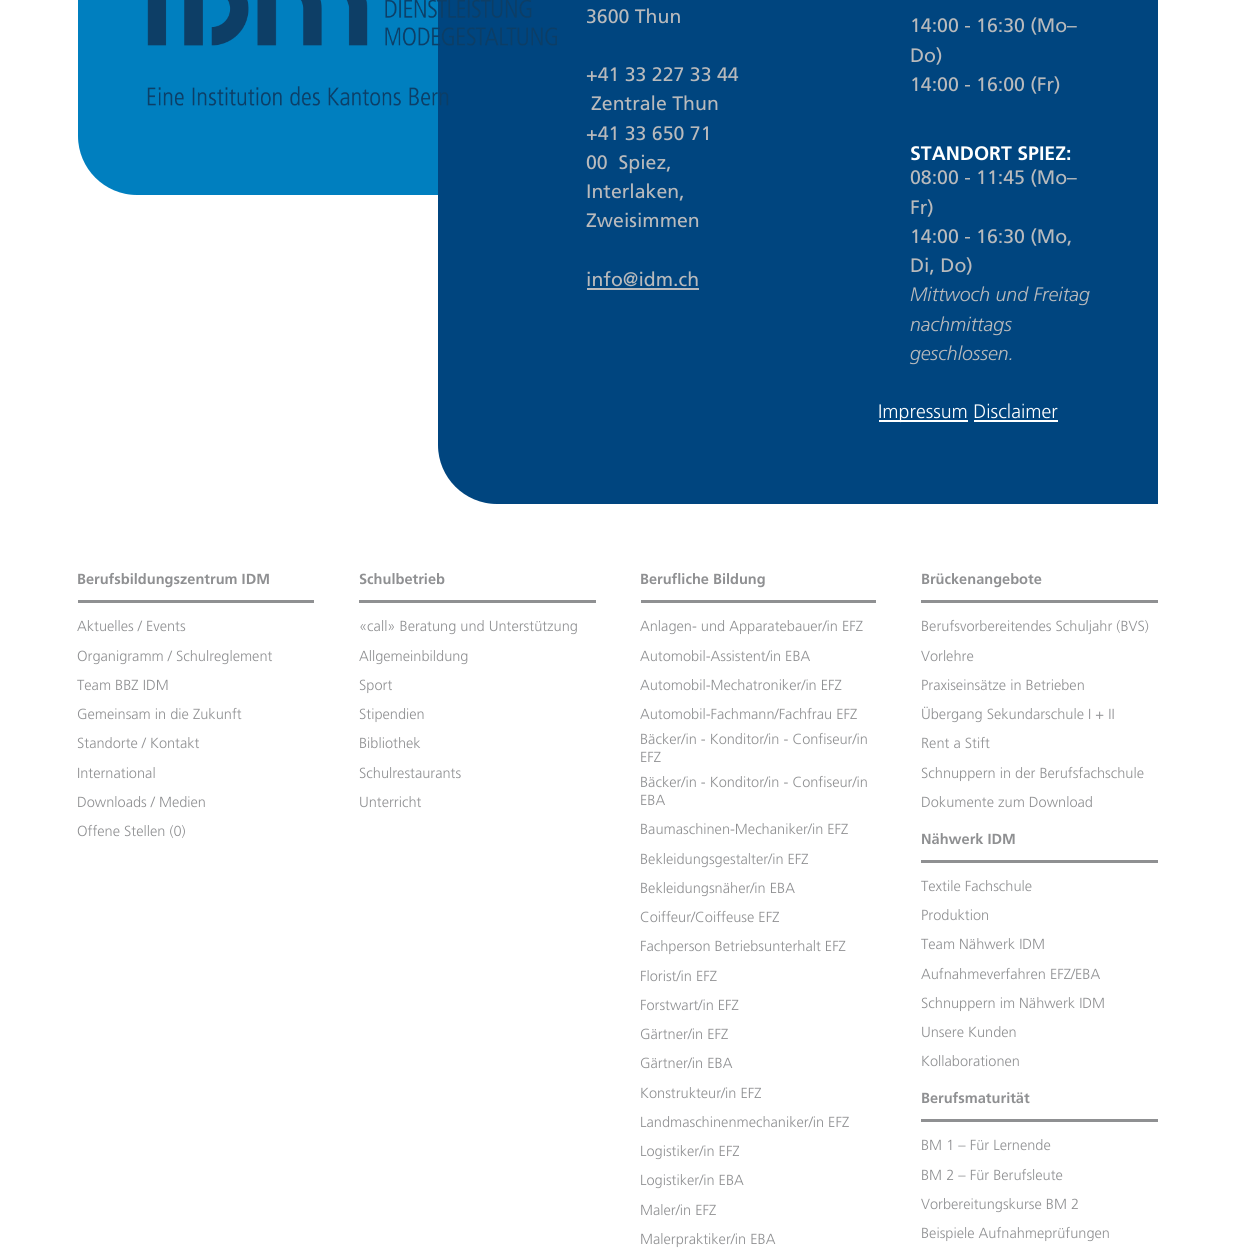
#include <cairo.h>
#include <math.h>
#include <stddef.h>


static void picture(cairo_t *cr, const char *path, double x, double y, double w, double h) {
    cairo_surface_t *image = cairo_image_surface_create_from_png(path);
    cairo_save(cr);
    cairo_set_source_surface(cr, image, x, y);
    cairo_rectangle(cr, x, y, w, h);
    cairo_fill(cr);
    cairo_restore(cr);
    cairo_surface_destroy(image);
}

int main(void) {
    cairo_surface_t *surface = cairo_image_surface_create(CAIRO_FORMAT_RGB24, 1234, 1258);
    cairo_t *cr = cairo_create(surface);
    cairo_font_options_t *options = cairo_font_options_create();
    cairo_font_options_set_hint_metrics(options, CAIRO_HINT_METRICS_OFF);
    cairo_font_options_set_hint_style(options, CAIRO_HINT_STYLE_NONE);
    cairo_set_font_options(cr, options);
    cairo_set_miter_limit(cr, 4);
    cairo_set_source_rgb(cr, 1, 1, 1);
    cairo_paint(cr);
    cairo_set_source_rgb(cr, 0, 0.498, 0.749);
    cairo_new_path(cr);
    cairo_move_to(cr, 78, -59);
    cairo_line_to(cr, 438, -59);
    cairo_line_to(cr, 438, 195);
    cairo_line_to(cr, 137, 195);
    cairo_curve_to(cr, 104.5, 195, 78, 168.5, 78, 136);
    cairo_close_path(cr);
    cairo_fill(cr);
    cairo_set_source_rgb(cr, 0, 0.271, 0.498);
    cairo_new_path(cr);
    cairo_move_to(cr, 438, -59);
    cairo_line_to(cr, 1158, -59);
    cairo_line_to(cr, 1158, 504);
    cairo_line_to(cr, 497, 504);
    cairo_curve_to(cr, 464.5, 504, 438, 477.5, 438, 445);
    cairo_close_path(cr);
    cairo_fill(cr);
    picture(cr, "img1.png", 147, 0, 410, 106);
    cairo_select_font_face(cr, "Frutiger", CAIRO_FONT_SLANT_NORMAL, CAIRO_FONT_WEIGHT_NORMAL);
    cairo_set_font_size(cr, 19.5);
    cairo_set_source_rgb(cr, 0.725, 0.729, 0.737);
    cairo_move_to(cr, 586, 23);
    cairo_show_text(cr, "3600 Thun");
    cairo_move_to(cr, 586, 81);
    cairo_show_text(cr, "+41 33 227 33 44");
    cairo_move_to(cr, 591, 110);
    cairo_show_text(cr, "Zentrale Thun");
    cairo_move_to(cr, 586, 140);
    cairo_show_text(cr, "+41 33 650 71");
    cairo_move_to(cr, 586, 169);
    cairo_show_text(cr, "00  Spiez,");
    cairo_move_to(cr, 586, 198);
    cairo_show_text(cr, "Interlaken,");
    cairo_move_to(cr, 586, 227);
    cairo_show_text(cr, "Zweisimmen");
    cairo_move_to(cr, 586, 286);
    cairo_show_text(cr, "info@idm.ch");
    cairo_rectangle(cr, 587, 288, 112, 2);
    cairo_fill(cr);
    cairo_move_to(cr, 910, 32);
    cairo_show_text(cr, "14:00 - 16:30 (Mo–");
    cairo_move_to(cr, 910, 62);
    cairo_show_text(cr, "Do)");
    cairo_move_to(cr, 910, 91);
    cairo_show_text(cr, "14:00 - 16:00 (Fr)");
    cairo_select_font_face(cr, "Frutiger", CAIRO_FONT_SLANT_NORMAL, CAIRO_FONT_WEIGHT_BOLD);
    cairo_set_source_rgb(cr, 1, 1, 1);
    cairo_move_to(cr, 910, 160);
    cairo_show_text(cr, "STANDORT SPIEZ:");
    cairo_select_font_face(cr, "Frutiger", CAIRO_FONT_SLANT_NORMAL, CAIRO_FONT_WEIGHT_NORMAL);
    cairo_set_source_rgb(cr, 0.725, 0.729, 0.737);
    cairo_move_to(cr, 910, 184);
    cairo_show_text(cr, "08:00 - 11:45 (Mo–");
    cairo_move_to(cr, 910, 214);
    cairo_show_text(cr, "Fr)");
    cairo_move_to(cr, 910, 243);
    cairo_show_text(cr, "14:00 - 16:30 (Mo,");
    cairo_move_to(cr, 910, 272);
    cairo_show_text(cr, "Di, Do)");
    cairo_select_font_face(cr, "Frutiger Light", CAIRO_FONT_SLANT_ITALIC, CAIRO_FONT_WEIGHT_NORMAL);
    cairo_move_to(cr, 910, 301);
    cairo_show_text(cr, "Mittwoch und Freitag");
    cairo_move_to(cr, 910, 331);
    cairo_show_text(cr, "nachmittags");
    cairo_move_to(cr, 910, 360);
    cairo_show_text(cr, "geschlossen.");
    cairo_set_source_rgb(cr, 1, 1, 1);
    cairo_rectangle(cr, 879, 420, 89, 2);
    cairo_fill(cr);
    cairo_select_font_face(cr, "Frutiger Light", CAIRO_FONT_SLANT_NORMAL, CAIRO_FONT_WEIGHT_NORMAL);
    cairo_move_to(cr, 878, 418);
    cairo_show_text(cr, "Impressum Disclaimer");
    cairo_rectangle(cr, 974, 420, 84, 2);
    cairo_fill(cr);
    cairo_select_font_face(cr, "Frutiger", CAIRO_FONT_SLANT_NORMAL, CAIRO_FONT_WEIGHT_BOLD);
    cairo_set_font_size(cr, 14.6);
    cairo_set_source_rgb(cr, 0.561, 0.565, 0.573);
    cairo_move_to(cr, 77, 584);
    cairo_show_text(cr, "Berufsbildungszentrum IDM");
    cairo_rectangle(cr, 78, 600, 236, 3);
    cairo_fill(cr);
    cairo_select_font_face(cr, "Frutiger Light", CAIRO_FONT_SLANT_NORMAL, CAIRO_FONT_WEIGHT_NORMAL);
    cairo_move_to(cr, 77, 631);
    cairo_show_text(cr, "Aktuelles / Events");
    cairo_move_to(cr, 77, 661);
    cairo_show_text(cr, "Organigramm / Schulreglement");
    cairo_move_to(cr, 77, 690);
    cairo_show_text(cr, "Team BBZ IDM");
    cairo_move_to(cr, 77, 719);
    cairo_show_text(cr, "Gemeinsam in die Zukunft");
    cairo_move_to(cr, 77, 748);
    cairo_show_text(cr, "Standorte / Kontakt");
    cairo_move_to(cr, 77, 778);
    cairo_show_text(cr, "International");
    cairo_move_to(cr, 77, 807);
    cairo_show_text(cr, "Downloads / Medien");
    cairo_move_to(cr, 77, 836);
    cairo_show_text(cr, "Offene Stellen (0)");
    cairo_select_font_face(cr, "Frutiger", CAIRO_FONT_SLANT_NORMAL, CAIRO_FONT_WEIGHT_BOLD);
    cairo_move_to(cr, 359, 584);
    cairo_show_text(cr, "Schulbetrieb");
    cairo_rectangle(cr, 359, 600, 237, 3);
    cairo_fill(cr);
    cairo_select_font_face(cr, "Frutiger Light", CAIRO_FONT_SLANT_NORMAL, CAIRO_FONT_WEIGHT_NORMAL);
    cairo_move_to(cr, 359, 631);
    cairo_show_text(cr, "«call» Beratung und Unterstützung");
    cairo_move_to(cr, 359, 661);
    cairo_show_text(cr, "Allgemeinbildung");
    cairo_move_to(cr, 359, 690);
    cairo_show_text(cr, "Sport");
    cairo_move_to(cr, 359, 719);
    cairo_show_text(cr, "Stipendien");
    cairo_move_to(cr, 359, 748);
    cairo_show_text(cr, "Bibliothek");
    cairo_move_to(cr, 359, 778);
    cairo_show_text(cr, "Schulrestaurants");
    cairo_move_to(cr, 359, 807);
    cairo_show_text(cr, "Unterricht");
    cairo_select_font_face(cr, "Frutiger", CAIRO_FONT_SLANT_NORMAL, CAIRO_FONT_WEIGHT_BOLD);
    cairo_move_to(cr, 640, 584);
    cairo_show_text(cr, "Berufliche Bildung");
    cairo_rectangle(cr, 641, 600, 235, 3);
    cairo_fill(cr);
    cairo_select_font_face(cr, "Frutiger Light", CAIRO_FONT_SLANT_NORMAL, CAIRO_FONT_WEIGHT_NORMAL);
    cairo_move_to(cr, 640, 631);
    cairo_show_text(cr, "Anlagen- und Apparatebauer/in EFZ");
    cairo_move_to(cr, 640, 661);
    cairo_show_text(cr, "Automobil-Assistent/in EBA");
    cairo_move_to(cr, 640, 690);
    cairo_show_text(cr, "Automobil-Mechatroniker/in EFZ");
    cairo_move_to(cr, 640, 719);
    cairo_show_text(cr, "Automobil-Fachmann/Fachfrau EFZ");
    cairo_move_to(cr, 640, 744);
    cairo_show_text(cr, "Bäcker/in - Konditor/in - Confiseur/in");
    cairo_move_to(cr, 640, 762);
    cairo_show_text(cr, "EFZ");
    cairo_move_to(cr, 640, 787);
    cairo_show_text(cr, "Bäcker/in - Konditor/in - Confiseur/in");
    cairo_move_to(cr, 640, 805);
    cairo_show_text(cr, "EBA");
    cairo_move_to(cr, 640, 834);
    cairo_show_text(cr, "Baumaschinen-Mechaniker/in EFZ");
    cairo_move_to(cr, 640, 864);
    cairo_show_text(cr, "Bekleidungsgestalter/in EFZ");
    cairo_move_to(cr, 640, 893);
    cairo_show_text(cr, "Bekleidungsnäher/in EBA");
    cairo_move_to(cr, 640, 922);
    cairo_show_text(cr, "Coiffeur/Coiffeuse EFZ");
    cairo_move_to(cr, 640, 951);
    cairo_show_text(cr, "Fachperson Betriebsunterhalt EFZ");
    cairo_move_to(cr, 640, 981);
    cairo_show_text(cr, "Florist/in EFZ");
    cairo_move_to(cr, 640, 1010);
    cairo_show_text(cr, "Forstwart/in EFZ");
    cairo_move_to(cr, 640, 1039);
    cairo_show_text(cr, "Gärtner/in EFZ");
    cairo_move_to(cr, 640, 1068);
    cairo_show_text(cr, "Gärtner/in EBA");
    cairo_move_to(cr, 640, 1098);
    cairo_show_text(cr, "Konstrukteur/in EFZ");
    cairo_move_to(cr, 640, 1127);
    cairo_show_text(cr, "Landmaschinenmechaniker/in EFZ");
    cairo_move_to(cr, 640, 1156);
    cairo_show_text(cr, "Logistiker/in EFZ");
    cairo_move_to(cr, 640, 1185);
    cairo_show_text(cr, "Logistiker/in EBA");
    cairo_move_to(cr, 640, 1215);
    cairo_show_text(cr, "Maler/in EFZ");
    cairo_move_to(cr, 640, 1244);
    cairo_show_text(cr, "Malerpraktiker/in EBA");
    cairo_select_font_face(cr, "Frutiger", CAIRO_FONT_SLANT_NORMAL, CAIRO_FONT_WEIGHT_BOLD);
    cairo_move_to(cr, 921, 584);
    cairo_show_text(cr, "Brückenangebote");
    cairo_rectangle(cr, 921, 600, 237, 3);
    cairo_fill(cr);
    cairo_select_font_face(cr, "Frutiger Light", CAIRO_FONT_SLANT_NORMAL, CAIRO_FONT_WEIGHT_NORMAL);
    cairo_move_to(cr, 921, 631);
    cairo_show_text(cr, "Berufsvorbereitendes Schuljahr (BVS)");
    cairo_move_to(cr, 921, 661);
    cairo_show_text(cr, "Vorlehre");
    cairo_move_to(cr, 921, 690);
    cairo_show_text(cr, "Praxiseinsätze in Betrieben");
    cairo_move_to(cr, 921, 719);
    cairo_show_text(cr, "Übergang Sekundarschule I + II");
    cairo_move_to(cr, 921, 748);
    cairo_show_text(cr, "Rent a Stift");
    cairo_move_to(cr, 921, 778);
    cairo_show_text(cr, "Schnuppern in der Berufsfachschule");
    cairo_move_to(cr, 921, 807);
    cairo_show_text(cr, "Dokumente zum Download");
    cairo_select_font_face(cr, "Frutiger", CAIRO_FONT_SLANT_NORMAL, CAIRO_FONT_WEIGHT_BOLD);
    cairo_move_to(cr, 921, 844);
    cairo_show_text(cr, "Nähwerk IDM");
    cairo_rectangle(cr, 921, 860, 237, 3);
    cairo_fill(cr);
    cairo_select_font_face(cr, "Frutiger Light", CAIRO_FONT_SLANT_NORMAL, CAIRO_FONT_WEIGHT_NORMAL);
    cairo_move_to(cr, 921, 891);
    cairo_show_text(cr, "Textile Fachschule");
    cairo_move_to(cr, 921, 920);
    cairo_show_text(cr, "Produktion");
    cairo_move_to(cr, 921, 949);
    cairo_show_text(cr, "Team Nähwerk IDM");
    cairo_move_to(cr, 921, 979);
    cairo_show_text(cr, "Aufnahmeverfahren EFZ/EBA");
    cairo_move_to(cr, 921, 1008);
    cairo_show_text(cr, "Schnuppern im Nähwerk IDM");
    cairo_move_to(cr, 921, 1037);
    cairo_show_text(cr, "Unsere Kunden");
    cairo_move_to(cr, 921, 1066);
    cairo_show_text(cr, "Kollaborationen");
    cairo_select_font_face(cr, "Frutiger", CAIRO_FONT_SLANT_NORMAL, CAIRO_FONT_WEIGHT_BOLD);
    cairo_move_to(cr, 921, 1103);
    cairo_show_text(cr, "Berufsmaturität");
    cairo_rectangle(cr, 921, 1119, 237, 3);
    cairo_fill(cr);
    cairo_select_font_face(cr, "Frutiger Light", CAIRO_FONT_SLANT_NORMAL, CAIRO_FONT_WEIGHT_NORMAL);
    cairo_move_to(cr, 921, 1150);
    cairo_show_text(cr, "BM 1 – Für Lernende");
    cairo_move_to(cr, 921, 1180);
    cairo_show_text(cr, "BM 2 – Für Berufsleute");
    cairo_move_to(cr, 921, 1209);
    cairo_show_text(cr, "Vorbereitungskurse BM 2");
    cairo_move_to(cr, 921, 1238);
    cairo_show_text(cr, "Beispiele Aufnahmeprüfungen");
    cairo_surface_write_to_png(surface, "page.png");
    cairo_font_options_destroy(options);
    cairo_destroy(cr);
    cairo_surface_destroy(surface);
    return 0;
}
